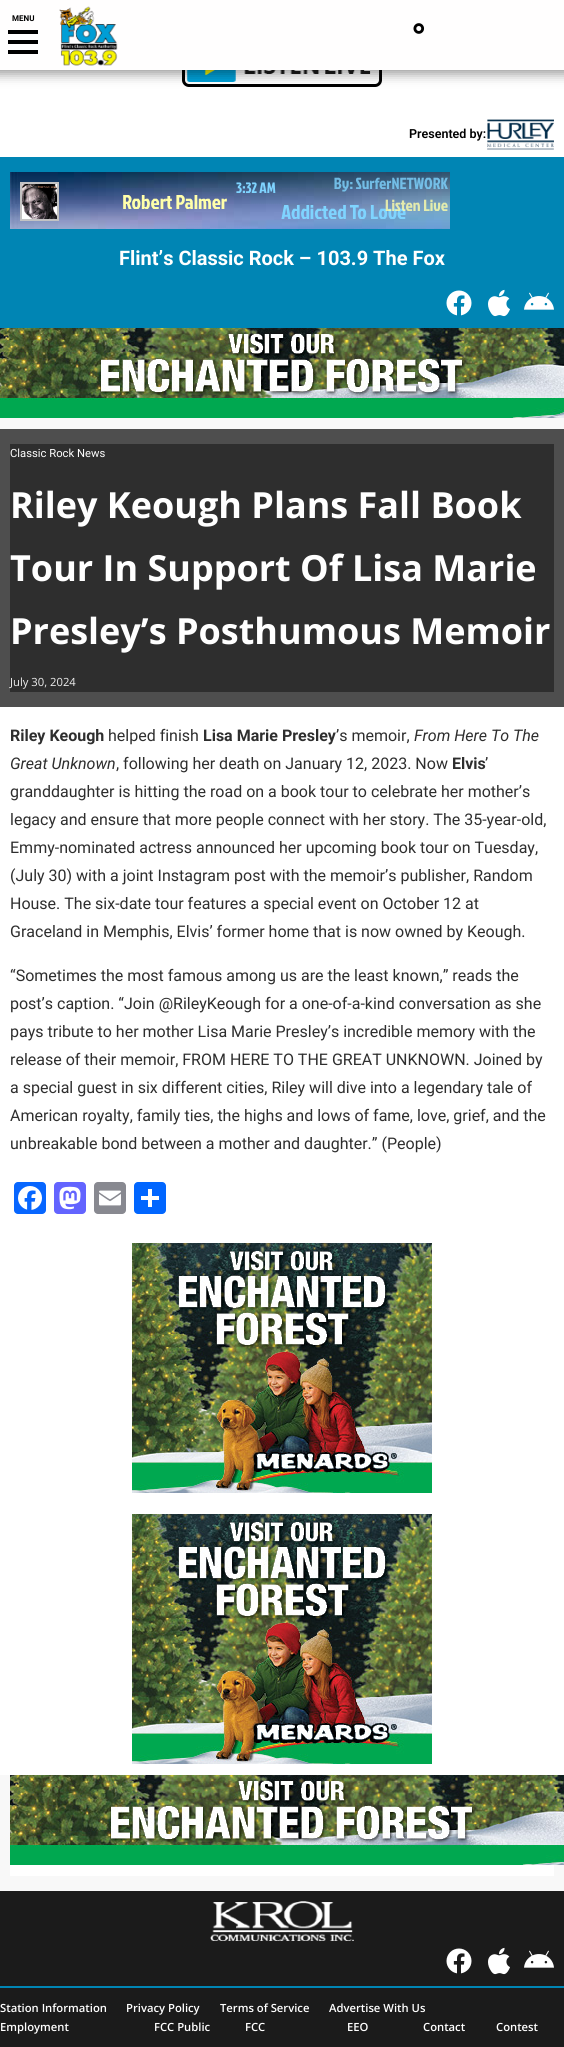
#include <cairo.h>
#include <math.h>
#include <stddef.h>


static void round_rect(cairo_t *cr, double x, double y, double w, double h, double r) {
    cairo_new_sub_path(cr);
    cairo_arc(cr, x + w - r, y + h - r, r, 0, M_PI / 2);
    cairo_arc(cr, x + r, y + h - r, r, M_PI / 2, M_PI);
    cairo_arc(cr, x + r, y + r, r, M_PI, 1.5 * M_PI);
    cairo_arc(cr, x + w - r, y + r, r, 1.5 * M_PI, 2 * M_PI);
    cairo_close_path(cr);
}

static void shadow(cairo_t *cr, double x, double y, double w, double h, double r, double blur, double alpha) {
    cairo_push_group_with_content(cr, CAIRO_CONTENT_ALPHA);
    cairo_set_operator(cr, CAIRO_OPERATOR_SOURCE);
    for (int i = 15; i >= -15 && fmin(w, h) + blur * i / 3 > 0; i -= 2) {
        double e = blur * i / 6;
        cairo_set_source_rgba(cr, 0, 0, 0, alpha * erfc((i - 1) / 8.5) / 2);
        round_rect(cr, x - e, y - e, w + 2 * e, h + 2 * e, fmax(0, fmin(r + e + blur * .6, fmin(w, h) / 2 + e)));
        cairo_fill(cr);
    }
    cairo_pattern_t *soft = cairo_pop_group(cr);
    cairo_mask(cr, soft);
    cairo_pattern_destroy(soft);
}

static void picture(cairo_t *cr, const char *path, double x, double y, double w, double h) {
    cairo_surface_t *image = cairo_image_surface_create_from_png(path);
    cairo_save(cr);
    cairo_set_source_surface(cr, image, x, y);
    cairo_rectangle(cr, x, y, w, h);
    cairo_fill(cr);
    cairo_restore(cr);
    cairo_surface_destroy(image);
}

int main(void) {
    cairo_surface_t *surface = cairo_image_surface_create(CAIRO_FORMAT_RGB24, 564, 2047);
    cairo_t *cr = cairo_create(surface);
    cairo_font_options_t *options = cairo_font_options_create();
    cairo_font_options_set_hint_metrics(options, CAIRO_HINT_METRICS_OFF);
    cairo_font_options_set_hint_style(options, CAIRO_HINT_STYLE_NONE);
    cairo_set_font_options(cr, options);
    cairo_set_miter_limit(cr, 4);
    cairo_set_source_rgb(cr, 0.969, 0.969, 0.969);
    cairo_paint(cr);
    cairo_set_source_rgb(cr, 1, 1, 1);
    cairo_rectangle(cr, 0, 70, 564, 87);
    cairo_fill(cr);
    picture(cr, "img2.png", 182, 70, 200, 17);
    cairo_set_source_rgb(cr, 0, 0, 0);
    shadow(cr, -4, -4, 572, 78, 0, 6, 0.4);
    cairo_set_source_rgb(cr, 1, 0.996, 0.996);
    cairo_rectangle(cr, 0, 0, 564, 70);
    cairo_fill(cr);
    cairo_select_font_face(cr, "Roboto", CAIRO_FONT_SLANT_NORMAL, CAIRO_FONT_WEIGHT_BOLD);
    cairo_set_font_size(cr, 8);
    cairo_set_source_rgb(cr, 0, 0, 0);
    cairo_move_to(cr, 12, 21);
    cairo_show_text(cr, "MENU");
    cairo_rectangle(cr, 8, 40, 30, 4);
    cairo_fill(cr);
    cairo_rectangle(cr, 8, 30, 30, 4);
    cairo_fill(cr);
    cairo_rectangle(cr, 8, 50, 30, 4);
    cairo_fill(cr);
    picture(cr, "img1.png", 59, 6, 59, 60);
    cairo_set_font_size(cr, 40);
    cairo_move_to(cr, 411, 52);
    cairo_show_text(cr, "°");
    cairo_select_font_face(cr, "Roboto SemiBold", CAIRO_FONT_SLANT_NORMAL, CAIRO_FONT_WEIGHT_NORMAL);
    cairo_set_font_size(cr, 12.5);
    cairo_move_to(cr, 409, 138);
    cairo_show_text(cr, "Presented by:");
    picture(cr, "img3.png", 487, 119, 67, 31);
    cairo_set_source_rgb(cr, 0, 0.522, 0.706);
    cairo_rectangle(cr, 0, 157, 564, 171);
    cairo_fill(cr);
    picture(cr, "img4.png", 10, 172, 440, 57);
    cairo_select_font_face(cr, "Roboto", CAIRO_FONT_SLANT_NORMAL, CAIRO_FONT_WEIGHT_BOLD);
    cairo_set_font_size(cr, 20);
    cairo_set_source_rgb(cr, 1, 1, 1);
    cairo_move_to(cr, 119, 265);
    cairo_show_text(cr, "Flint’s Classic Rock – 103.9 The Fox");
    picture(cr, "img5.png", 446, 290, 26, 26);
    picture(cr, "img6.png", 488, 289, 22, 28);
    picture(cr, "img7.png", 524, 292, 30, 18);
    picture(cr, "img8.png", 0, 328, 564, 90);
    cairo_set_source_rgb(cr, 0.306, 0.306, 0.306);
    cairo_rectangle(cr, 0, 429, 564, 278);
    cairo_fill(cr);
    cairo_set_source_rgb(cr, 0.18, 0.18, 0.18);
    cairo_rectangle(cr, 10, 444, 544, 248);
    cairo_fill(cr);
    cairo_select_font_face(cr, "Roboto", CAIRO_FONT_SLANT_NORMAL, CAIRO_FONT_WEIGHT_NORMAL);
    cairo_set_font_size(cr, 11.25);
    cairo_set_source_rgb(cr, 1, 1, 1);
    cairo_move_to(cr, 10, 457);
    cairo_show_text(cr, "Classic Rock News");
    cairo_select_font_face(cr, "Open Sans", CAIRO_FONT_SLANT_NORMAL, CAIRO_FONT_WEIGHT_BOLD);
    cairo_set_font_size(cr, 36);
    cairo_move_to(cr, 10, 518);
    cairo_show_text(cr, "Riley Keough Plans Fall Book");
    cairo_move_to(cr, 10, 581);
    cairo_show_text(cr, "Tour In Support Of Lisa Marie");
    cairo_move_to(cr, 10, 644);
    cairo_show_text(cr, "Presley’s Posthumous Memoir");
    cairo_select_font_face(cr, "Open Sans", CAIRO_FONT_SLANT_NORMAL, CAIRO_FONT_WEIGHT_NORMAL);
    cairo_set_font_size(cr, 11.25);
    cairo_set_source_rgb(cr, 0.933, 0.933, 0.933);
    cairo_move_to(cr, 10, 686);
    cairo_show_text(cr, "July 30, 2024");
    cairo_set_source_rgb(cr, 1, 1, 1);
    cairo_rectangle(cr, 0, 707, 564, 1068);
    cairo_fill(cr);
    cairo_select_font_face(cr, "Roboto", CAIRO_FONT_SLANT_NORMAL, CAIRO_FONT_WEIGHT_BOLD);
    cairo_set_font_size(cr, 16);
    cairo_set_source_rgb(cr, 0.18, 0.18, 0.18);
    cairo_move_to(cr, 10, 741);
    cairo_show_text(cr, "Riley Keough");
    cairo_select_font_face(cr, "Roboto", CAIRO_FONT_SLANT_NORMAL, CAIRO_FONT_WEIGHT_NORMAL);
    cairo_move_to(cr, 108, 741);
    cairo_show_text(cr, "helped finish");
    cairo_select_font_face(cr, "Roboto", CAIRO_FONT_SLANT_NORMAL, CAIRO_FONT_WEIGHT_BOLD);
    cairo_move_to(cr, 203, 741);
    cairo_show_text(cr, "Lisa Marie Presley");
    cairo_select_font_face(cr, "Roboto", CAIRO_FONT_SLANT_NORMAL, CAIRO_FONT_WEIGHT_NORMAL);
    cairo_move_to(cr, 336, 741);
    cairo_show_text(cr, "’s memoir,");
    cairo_select_font_face(cr, "Roboto", CAIRO_FONT_SLANT_ITALIC, CAIRO_FONT_WEIGHT_NORMAL);
    cairo_move_to(cr, 414, 741);
    cairo_show_text(cr, "From Here To The");
    cairo_move_to(cr, 10, 769);
    cairo_show_text(cr, "Great Unknown");
    cairo_select_font_face(cr, "Roboto", CAIRO_FONT_SLANT_NORMAL, CAIRO_FONT_WEIGHT_NORMAL);
    cairo_move_to(cr, 116, 769);
    cairo_show_text(cr, ", following her death on January 12, 2023. Now");
    cairo_select_font_face(cr, "Roboto", CAIRO_FONT_SLANT_NORMAL, CAIRO_FONT_WEIGHT_BOLD);
    cairo_move_to(cr, 452, 769);
    cairo_show_text(cr, "Elvis");
    cairo_select_font_face(cr, "Roboto", CAIRO_FONT_SLANT_NORMAL, CAIRO_FONT_WEIGHT_NORMAL);
    cairo_move_to(cr, 485, 769);
    cairo_show_text(cr, "’");
    cairo_move_to(cr, 10, 797);
    cairo_show_text(cr, "granddaughter is hitting the road on a book tour to celebrate her mother’s");
    cairo_move_to(cr, 10, 825);
    cairo_show_text(cr, "legacy and ensure that more people connect with her story. The 35-year-old,");
    cairo_move_to(cr, 10, 853);
    cairo_show_text(cr, "Emmy-nominated actress announced her upcoming book tour on Tuesday,");
    cairo_move_to(cr, 10, 881);
    cairo_show_text(cr, "(July 30) with a joint Instagram post with the memoir’s publisher, Random");
    cairo_move_to(cr, 10, 909);
    cairo_show_text(cr, "House. The six-date tour features a special event on October 12 at");
    cairo_move_to(cr, 10, 937);
    cairo_show_text(cr, "Graceland in Memphis, Elvis’ former home that is now owned by Keough.");
    cairo_move_to(cr, 10, 981);
    cairo_show_text(cr, "“Sometimes the most famous among us are the least known,” reads the");
    cairo_move_to(cr, 10, 1009);
    cairo_show_text(cr, "post’s caption. “Join @RileyKeough for a one-of-a-kind conversation as she");
    cairo_move_to(cr, 10, 1037);
    cairo_show_text(cr, "pays tribute to her mother Lisa Marie Presley’s incredible memory with the");
    cairo_move_to(cr, 10, 1065);
    cairo_show_text(cr, "release of their memoir, FROM HERE TO THE GREAT UNKNOWN. Joined by");
    cairo_move_to(cr, 10, 1093);
    cairo_show_text(cr, "a special guest in six different cities, Riley will dive into a legendary tale of");
    cairo_move_to(cr, 10, 1121);
    cairo_show_text(cr, "American royalty, family ties, the highs and lows of fame, love, grief, and the");
    cairo_move_to(cr, 10, 1149);
    cairo_show_text(cr, "unbreakable bond between a mother and daughter.” (People)");
    cairo_set_source_rgb(cr, 0.031, 0.4, 1);
    round_rect(cr, 14, 1182, 32, 32, 4);
    cairo_fill(cr);
    picture(cr, "img9.png", 18, 1186, 24, 24);
    cairo_set_source_rgb(cr, 0.388, 0.392, 1);
    round_rect(cr, 54, 1182, 32, 32, 4);
    cairo_fill(cr);
    picture(cr, "img10.png", 59, 1186, 22, 24);
    cairo_set_source_rgb(cr, 0.533, 0.537, 0.565);
    round_rect(cr, 94, 1182, 32, 32, 4);
    cairo_fill(cr);
    picture(cr, "img11.png", 99, 1190, 22, 16);
    cairo_set_source_rgb(cr, 0.004, 0.4, 1);
    round_rect(cr, 134, 1182, 32, 32, 4);
    cairo_fill(cr);
    cairo_set_source_rgb(cr, 1, 1, 1);
    cairo_rectangle(cr, 148, 1189, 4, 18);
    cairo_fill(cr);
    cairo_rectangle(cr, 141, 1196, 18, 4);
    cairo_fill(cr);
    picture(cr, "img12.png", 132, 1243, 300, 250);
    picture(cr, "img12.png", 132, 1514, 300, 250);
    cairo_rectangle(cr, 10, 1865, 544, 11);
    cairo_fill(cr);
    picture(cr, "img13.png", 10, 1775, 554, 90);
    cairo_set_source_rgb(cr, 0.106, 0.106, 0.106);
    cairo_rectangle(cr, 0, 1891, 564, 156);
    cairo_fill(cr);
    picture(cr, "img14.png", 210, 1901, 144, 40);
    picture(cr, "img15.png", 446, 1948, 26, 26);
    picture(cr, "img16.png", 488, 1947, 22, 28);
    picture(cr, "img17.png", 524, 1950, 30, 18);
    cairo_set_source_rgb(cr, 0, 0.522, 0.706);
    cairo_rectangle(cr, 0, 1986, 564, 2);
    cairo_fill(cr);
    cairo_select_font_face(cr, "Open Sans SemiBold", CAIRO_FONT_SLANT_NORMAL, CAIRO_FONT_WEIGHT_NORMAL);
    cairo_set_font_size(cr, 11.25);
    cairo_set_source_rgb(cr, 1, 1, 1);
    cairo_move_to(cr, 0, 2012);
    cairo_show_text(cr, "Station Information");
    cairo_move_to(cr, 126, 2012);
    cairo_show_text(cr, "Privacy Policy");
    cairo_move_to(cr, 220, 2012);
    cairo_show_text(cr, "Terms of Service");
    cairo_move_to(cr, 329, 2012);
    cairo_show_text(cr, "Advertise With Us");
    cairo_move_to(cr, 0, 2031);
    cairo_show_text(cr, "Employment");
    cairo_move_to(cr, 154, 2031);
    cairo_show_text(cr, "FCC Public");
    cairo_move_to(cr, 245, 2031);
    cairo_show_text(cr, "FCC");
    cairo_move_to(cr, 347, 2031);
    cairo_show_text(cr, "EEO");
    cairo_move_to(cr, 423, 2031);
    cairo_show_text(cr, "Contact");
    cairo_move_to(cr, 496, 2031);
    cairo_show_text(cr, "Contest");
    cairo_surface_write_to_png(surface, "page.png");
    cairo_font_options_destroy(options);
    cairo_destroy(cr);
    cairo_surface_destroy(surface);
    return 0;
}
